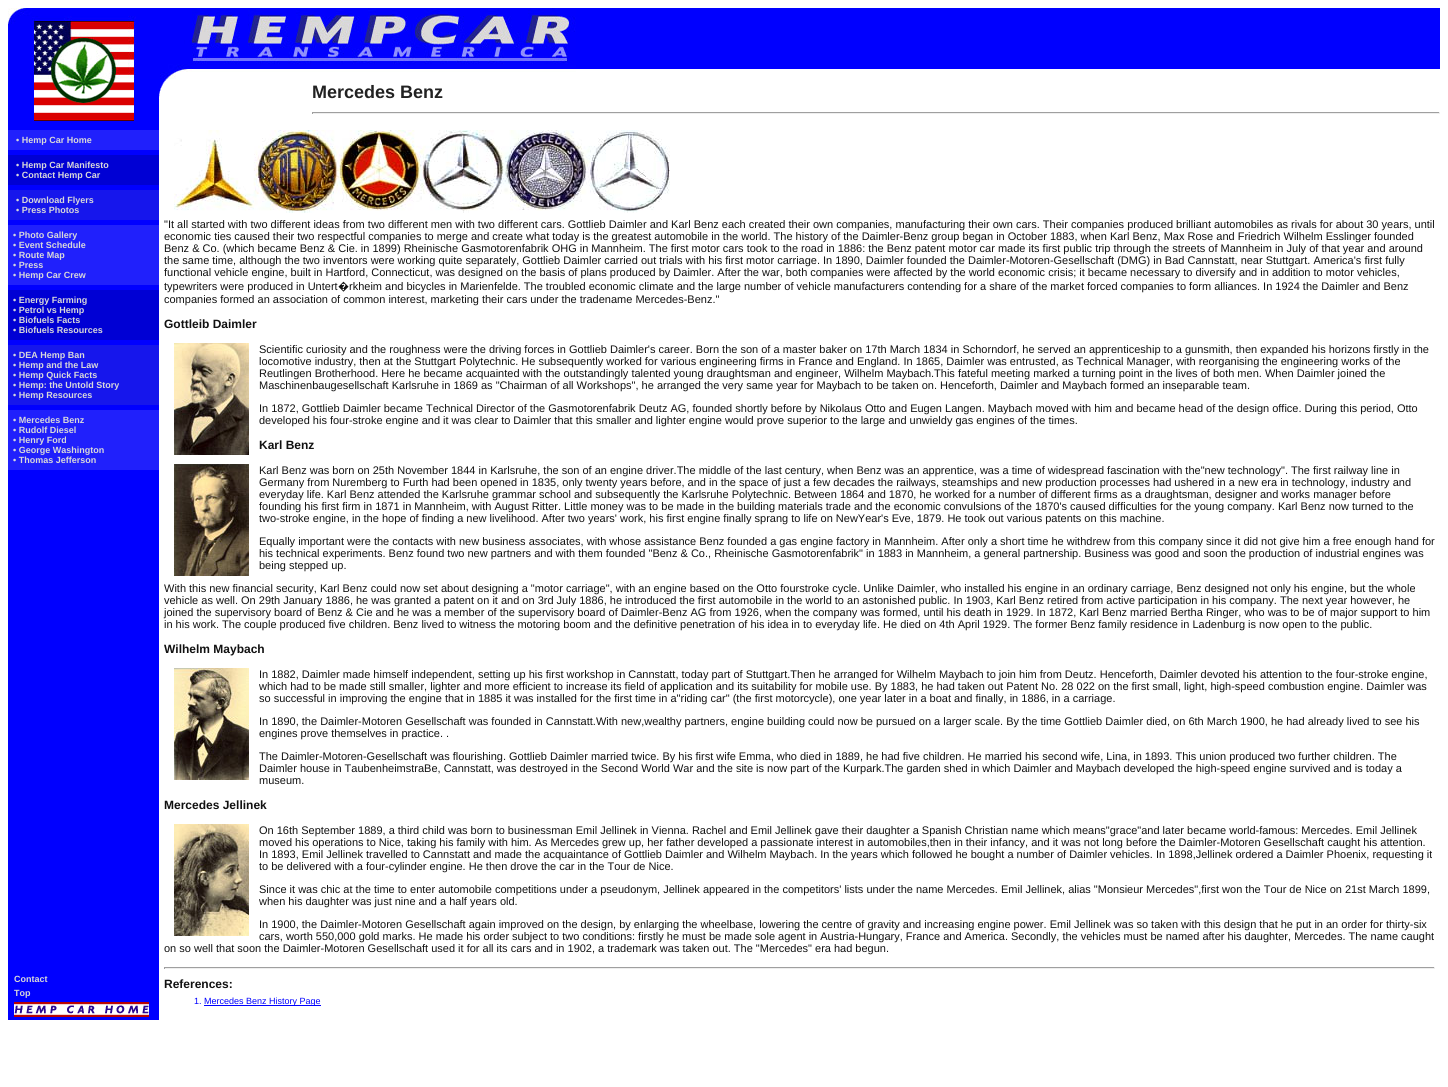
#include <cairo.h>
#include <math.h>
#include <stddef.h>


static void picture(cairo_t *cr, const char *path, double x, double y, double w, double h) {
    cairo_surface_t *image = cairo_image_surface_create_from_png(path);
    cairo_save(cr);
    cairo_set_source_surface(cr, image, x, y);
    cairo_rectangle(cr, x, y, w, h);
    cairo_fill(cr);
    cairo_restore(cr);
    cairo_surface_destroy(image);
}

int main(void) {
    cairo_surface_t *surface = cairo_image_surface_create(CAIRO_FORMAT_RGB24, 1448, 1087);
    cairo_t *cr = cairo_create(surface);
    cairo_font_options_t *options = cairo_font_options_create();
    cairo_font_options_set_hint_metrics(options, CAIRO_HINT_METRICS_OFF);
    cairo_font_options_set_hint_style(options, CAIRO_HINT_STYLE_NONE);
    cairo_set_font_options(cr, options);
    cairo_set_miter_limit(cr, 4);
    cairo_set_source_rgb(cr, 1, 1, 1);
    cairo_paint(cr);
    cairo_set_source_rgb(cr, 0, 0, 1);
    cairo_rectangle(cr, 576, 8, 864, 61);
    cairo_fill(cr);
    picture(cr, "img1.png", 8, 8, 568, 71);
    picture(cr, "img2.png", 8, 79, 159, 46);
    cairo_select_font_face(cr, "Liberation Sans", CAIRO_FONT_SLANT_NORMAL, CAIRO_FONT_WEIGHT_BOLD);
    cairo_set_font_size(cr, 18);
    cairo_set_source_rgb(cr, 0.133, 0.133, 0.133);
    cairo_move_to(cr, 312, 98);
    cairo_show_text(cr, "Mercedes Benz");
    cairo_set_source_rgb(cr, 0.624, 0.624, 0.624);
    cairo_rectangle(cr, 312, 112, 1128, 1);
    cairo_fill(cr);
    cairo_set_source_rgb(cr, 0.933, 0.933, 0.933);
    cairo_rectangle(cr, 1439, 112, 1, 2);
    cairo_fill(cr);
    cairo_rectangle(cr, 312, 113, 1128, 1);
    cairo_fill(cr);
    cairo_set_source_rgb(cr, 0.624, 0.624, 0.624);
    cairo_rectangle(cr, 312, 112, 1, 2);
    cairo_fill(cr);
    cairo_set_source_rgb(cr, 0, 0, 1);
    cairo_rectangle(cr, 8, 125, 151, 895);
    cairo_fill(cr);
    cairo_set_source_rgb(cr, 0.125, 0.125, 0.988);
    cairo_rectangle(cr, 8, 130, 151, 20);
    cairo_fill(cr);
    cairo_set_font_size(cr, 9);
    cairo_set_source_rgb(cr, 0.851, 0.851, 0.851);
    cairo_move_to(cr, 16, 143);
    cairo_show_text(cr, "• Hemp Car Home");
    cairo_set_source_rgb(cr, 0, 0, 0.831);
    cairo_rectangle(cr, 8, 155, 151, 30);
    cairo_fill(cr);
    cairo_set_source_rgb(cr, 0.851, 0.851, 0.851);
    cairo_move_to(cr, 16, 168);
    cairo_show_text(cr, "• Hemp Car Manifesto");
    cairo_move_to(cr, 16, 178);
    cairo_show_text(cr, "• Contact Hemp Car");
    cairo_set_source_rgb(cr, 0.086, 0.086, 0.925);
    cairo_rectangle(cr, 8, 190, 151, 30);
    cairo_fill(cr);
    cairo_set_source_rgb(cr, 0.851, 0.851, 0.851);
    cairo_move_to(cr, 16, 203);
    cairo_show_text(cr, "• Download Flyers");
    cairo_move_to(cr, 16, 213);
    cairo_show_text(cr, "• Press Photos");
    cairo_set_source_rgb(cr, 0.125, 0.125, 0.988);
    cairo_rectangle(cr, 8, 225, 151, 60);
    cairo_fill(cr);
    cairo_set_source_rgb(cr, 0.851, 0.851, 0.851);
    cairo_move_to(cr, 13, 238);
    cairo_show_text(cr, "• Photo Gallery");
    cairo_move_to(cr, 13, 248);
    cairo_show_text(cr, "• Event Schedule");
    cairo_move_to(cr, 13, 258);
    cairo_show_text(cr, "• Route Map");
    cairo_move_to(cr, 13, 268);
    cairo_show_text(cr, "• Press");
    cairo_move_to(cr, 13, 278);
    cairo_show_text(cr, "• Hemp Car Crew");
    cairo_set_source_rgb(cr, 0, 0, 0.831);
    cairo_rectangle(cr, 8, 290, 151, 50);
    cairo_fill(cr);
    cairo_set_source_rgb(cr, 0.851, 0.851, 0.851);
    cairo_move_to(cr, 13, 303);
    cairo_show_text(cr, "• Energy Farming");
    cairo_move_to(cr, 13, 313);
    cairo_show_text(cr, "• Petrol vs Hemp");
    cairo_move_to(cr, 13, 323);
    cairo_show_text(cr, "• Biofuels Facts");
    cairo_move_to(cr, 13, 333);
    cairo_show_text(cr, "• Biofuels Resources");
    cairo_set_source_rgb(cr, 0.086, 0.086, 0.925);
    cairo_rectangle(cr, 8, 345, 151, 60);
    cairo_fill(cr);
    cairo_set_source_rgb(cr, 0.851, 0.851, 0.851);
    cairo_move_to(cr, 13, 358);
    cairo_show_text(cr, "• DEA Hemp Ban");
    cairo_move_to(cr, 13, 368);
    cairo_show_text(cr, "• Hemp and the Law");
    cairo_move_to(cr, 13, 378);
    cairo_show_text(cr, "• Hemp Quick Facts");
    cairo_move_to(cr, 13, 388);
    cairo_show_text(cr, "• Hemp: the Untold Story");
    cairo_move_to(cr, 13, 398);
    cairo_show_text(cr, "• Hemp Resources");
    cairo_set_source_rgb(cr, 0.125, 0.125, 0.988);
    cairo_rectangle(cr, 8, 410, 151, 60);
    cairo_fill(cr);
    cairo_set_source_rgb(cr, 0.851, 0.851, 0.851);
    cairo_move_to(cr, 13, 423);
    cairo_show_text(cr, "• Mercedes Benz");
    cairo_move_to(cr, 13, 433);
    cairo_show_text(cr, "• Rudolf Diesel");
    cairo_move_to(cr, 13, 443);
    cairo_show_text(cr, "• Henry Ford");
    cairo_move_to(cr, 13, 453);
    cairo_show_text(cr, "• George Washington");
    cairo_move_to(cr, 13, 463);
    cairo_show_text(cr, "• Thomas Jefferson");
    picture(cr, "img3.png", 174, 130, 496, 83);
    cairo_select_font_face(cr, "Liberation Sans", CAIRO_FONT_SLANT_NORMAL, CAIRO_FONT_WEIGHT_NORMAL);
    cairo_set_font_size(cr, 11);
    cairo_set_source_rgb(cr, 0.067, 0.067, 0.067);
    cairo_move_to(cr, 164, 228);
    cairo_show_text(cr, "\"It all started with two different ideas from two different men with two different cars. Gottlieb Daimler and Karl Benz each created their own companies, manufacturing their own cars. Their companies produced brilliant automobiles as rivals for about 30 years, until");
    cairo_move_to(cr, 164, 240);
    cairo_show_text(cr, "economic ties caused their two respectful companies to merge and create what today is the greatest automobile in the world. The history of the Daimler-Benz group began in October 1883, when Karl Benz, Max Rose and Friedrich Wilhelm Esslinger founded");
    cairo_move_to(cr, 164, 252);
    cairo_show_text(cr, "Benz & Co. (which became Benz & Cie. in 1899) Rheinische Gasmotorenfabrik OHG in Mannheim. The first motor cars took to the road in 1886: the Benz patent motor car made its first public trip through the streets of Mannheim in July of that year and around");
    cairo_move_to(cr, 164, 264);
    cairo_show_text(cr, "the same time, although the two inventors were working quite separately, Gottlieb Daimler carried out trials with his first motor carriage. In 1890, Daimler founded the Daimler-Motoren-Gesellschaft (DMG) in Bad Cannstatt, near Stuttgart. America's first fully");
    cairo_move_to(cr, 164, 276);
    cairo_show_text(cr, "functional vehicle engine, built in Hartford, Connecticut, was designed on the basis of plans produced by Daimler. After the war, both companies were affected by the world economic crisis; it became necessary to diversify and in addition to motor vehicles,");
    cairo_move_to(cr, 164, 290);
    cairo_show_text(cr, "typewriters were produced in Untert");
    cairo_select_font_face(cr, "Noto Sans", CAIRO_FONT_SLANT_NORMAL, CAIRO_FONT_WEIGHT_NORMAL);
    cairo_move_to(cr, 338, 290);
    cairo_show_text(cr, "�");
    cairo_select_font_face(cr, "Liberation Sans", CAIRO_FONT_SLANT_NORMAL, CAIRO_FONT_WEIGHT_NORMAL);
    cairo_move_to(cr, 349, 290);
    cairo_show_text(cr, "rkheim and bicycles in Marienfelde. The troubled economic climate and the large number of vehicle manufacturers contending for a share of the market forced companies to form alliances. In 1924 the Daimler and Benz");
    cairo_move_to(cr, 164, 303);
    cairo_show_text(cr, "companies formed an association of common interest, marketing their cars under the tradename Mercedes-Benz.\"");
    cairo_select_font_face(cr, "Liberation Sans", CAIRO_FONT_SLANT_NORMAL, CAIRO_FONT_WEIGHT_BOLD);
    cairo_set_font_size(cr, 12);
    cairo_move_to(cr, 164, 328);
    cairo_show_text(cr, "Gottleib Daimler");
    picture(cr, "img4.png", 174, 343, 75, 112);
    cairo_select_font_face(cr, "Liberation Sans", CAIRO_FONT_SLANT_NORMAL, CAIRO_FONT_WEIGHT_NORMAL);
    cairo_set_font_size(cr, 11);
    cairo_move_to(cr, 259, 353);
    cairo_show_text(cr, "Scientific curiosity and the roughness were the driving forces in Gottlieb Daimler's career. Born the son of a master baker on 17th March 1834 in Schorndorf, he served an apprenticeship to a gunsmith, then expanded his horizons firstly in the");
    cairo_move_to(cr, 259, 365);
    cairo_show_text(cr, "locomotive industry, then at the Stuttgart Polytechnic. He subsequently worked for various engineering firms in France and England. In 1865, Daimler was entrusted, as Technical Manager, with reorganising the engineering works of the");
    cairo_move_to(cr, 259, 377);
    cairo_show_text(cr, "Reutlingen Brotherhood. Here he became acquainted with the outstandingly talented young draughtsman and engineer, Wilhelm Maybach.This fateful meeting marked a turning point in the lives of both men. When Daimler joined the");
    cairo_move_to(cr, 259, 389);
    cairo_show_text(cr, "Maschinenbaugesellschaft Karlsruhe in 1869 as \"Chairman of all Workshops\", he arranged the very same year for Maybach to be taken on. Henceforth, Daimler and Maybach formed an inseparable team.");
    cairo_move_to(cr, 259, 412);
    cairo_show_text(cr, "In 1872, Gottlieb Daimler became Technical Director of the Gasmotorenfabrik Deutz AG, founded shortly before by Nikolaus Otto and Eugen Langen. Maybach moved with him and became head of the design office. During this period, Otto");
    cairo_move_to(cr, 259, 424);
    cairo_show_text(cr, "developed his four-stroke engine and it was clear to Daimler that this smaller and lighter engine would prove superior to the large and unwieldy gas engines of the times.");
    cairo_select_font_face(cr, "Liberation Sans", CAIRO_FONT_SLANT_NORMAL, CAIRO_FONT_WEIGHT_BOLD);
    cairo_set_font_size(cr, 12);
    cairo_move_to(cr, 259, 449);
    cairo_show_text(cr, "Karl Benz");
    picture(cr, "img5.png", 174, 464, 75, 112);
    cairo_select_font_face(cr, "Liberation Sans", CAIRO_FONT_SLANT_NORMAL, CAIRO_FONT_WEIGHT_NORMAL);
    cairo_set_font_size(cr, 11);
    cairo_move_to(cr, 259, 474);
    cairo_show_text(cr, "Karl Benz was born on 25th November 1844 in Karlsruhe, the son of an engine driver.The middle of the last century, when Benz was an apprentice, was a time of widespread fascination with the\"new technology\". The first railway line in");
    cairo_move_to(cr, 259, 486);
    cairo_show_text(cr, "Germany from Nuremberg to Furth had been opened in 1835, only twenty years before, and in the space of just a few decades the railways, steamships and new production processes had ushered in a new era in technology, industry and");
    cairo_move_to(cr, 259, 498);
    cairo_show_text(cr, "everyday life. Karl Benz attended the Karlsruhe grammar school and subsequently the Karlsruhe Polytechnic. Between 1864 and 1870, he worked for a number of different firms as a draughtsman, designer and works manager before");
    cairo_move_to(cr, 259, 510);
    cairo_show_text(cr, "founding his first firm in 1871 in Mannheim, with August Ritter. Little money was to be made in the building materials trade and the economic convulsions of the 1870's caused difficulties for the young company. Karl Benz now turned to the");
    cairo_move_to(cr, 259, 522);
    cairo_show_text(cr, "two-stroke engine, in the hope of finding a new livelihood. After two years' work, his first engine finally sprang to life on NewYear's Eve, 1879. He took out various patents on this machine.");
    cairo_move_to(cr, 259, 545);
    cairo_show_text(cr, "Equally important were the contacts with new business associates, with whose assistance Benz founded a gas engine factory in Mannheim. After only a short time he withdrew from this company since it did not give him a free enough hand for");
    cairo_move_to(cr, 259, 557);
    cairo_show_text(cr, "his technical experiments. Benz found two new partners and with them founded \"Benz & Co., Rheinische Gasmotorenfabrik\" in 1883 in Mannheim, a general partnership. Business was good and soon the production of industrial engines was");
    cairo_move_to(cr, 259, 569);
    cairo_show_text(cr, "being stepped up.");
    cairo_move_to(cr, 164, 592);
    cairo_show_text(cr, "With this new financial security, Karl Benz could now set about designing a \"motor carriage\", with an engine based on the Otto fourstroke cycle. Unlike Daimler, who installed his engine in an ordinary carriage, Benz designed not only his engine, but the whole");
    cairo_move_to(cr, 164, 604);
    cairo_show_text(cr, "vehicle as well. On 29th January 1886, he was granted a patent on it and on 3rd July 1886, he introduced the first automobile in the world to an astonished public. In 1903, Karl Benz retired from active participation in his company. The next year however, he");
    cairo_move_to(cr, 164, 616);
    cairo_show_text(cr, "joined the supervisory board of Benz & Cie and he was a member of the supervisory board of Daimler-Benz AG from 1926, when the company was formed, until his death in 1929. In 1872, Karl Benz married Bertha Ringer, who was to be of major support to him");
    cairo_move_to(cr, 164, 628);
    cairo_show_text(cr, "in his work. The couple produced five children. Benz lived to witness the motoring boom and the definitive penetration of his idea in to everyday life. He died on 4th April 1929. The former Benz family residence in Ladenburg is now open to the public.");
    cairo_select_font_face(cr, "Liberation Sans", CAIRO_FONT_SLANT_NORMAL, CAIRO_FONT_WEIGHT_BOLD);
    cairo_set_font_size(cr, 12);
    cairo_move_to(cr, 164, 653);
    cairo_show_text(cr, "Wilhelm Maybach");
    picture(cr, "img6.png", 174, 668, 75, 112);
    cairo_select_font_face(cr, "Liberation Sans", CAIRO_FONT_SLANT_NORMAL, CAIRO_FONT_WEIGHT_NORMAL);
    cairo_set_font_size(cr, 11);
    cairo_move_to(cr, 259, 678);
    cairo_show_text(cr, "In 1882, Daimler made himself independent, setting up his first workshop in Cannstatt, today part of Stuttgart.Then he arranged for Wilhelm Maybach to join him from Deutz. Henceforth, Daimler devoted his attention to the four-stroke engine,");
    cairo_move_to(cr, 259, 690);
    cairo_show_text(cr, "which had to be made still smaller, lighter and more efficient to increase its field of application and its suitability for mobile use. By 1883, he had taken out Patent No. 28 022 on the first small, light, high-speed combustion engine. Daimler was");
    cairo_move_to(cr, 259, 702);
    cairo_show_text(cr, "so successful in improving the engine that in 1885 it was installed for the first time in a\"riding car\" (the first motorcycle), one year later in a boat and finally, in 1886, in a carriage.");
    cairo_move_to(cr, 259, 725);
    cairo_show_text(cr, "In 1890, the Daimler-Motoren Gesellschaft was founded in Cannstatt.With new,wealthy partners, engine building could now be pursued on a larger scale. By the time Gottlieb Daimler died, on 6th March 1900, he had already lived to see his");
    cairo_move_to(cr, 259, 737);
    cairo_show_text(cr, "engines prove themselves in practice. .");
    cairo_move_to(cr, 259, 760);
    cairo_show_text(cr, "The Daimler-Motoren-Gesellschaft was flourishing. Gottlieb Daimler married twice. By his first wife Emma, who died in 1889, he had five children. He married his second wife, Lina, in 1893. This union produced two further children. The");
    cairo_move_to(cr, 259, 772);
    cairo_show_text(cr, "Daimler house in TaubenheimstraBe, Cannstatt, was destroyed in the Second World War and the site is now part of the Kurpark.The garden shed in which Daimler and Maybach developed the high-speed engine survived and is today a");
    cairo_move_to(cr, 259, 784);
    cairo_show_text(cr, "museum.");
    cairo_select_font_face(cr, "Liberation Sans", CAIRO_FONT_SLANT_NORMAL, CAIRO_FONT_WEIGHT_BOLD);
    cairo_set_font_size(cr, 12);
    cairo_move_to(cr, 164, 809);
    cairo_show_text(cr, "Mercedes Jellinek");
    picture(cr, "img7.png", 174, 824, 75, 112);
    cairo_select_font_face(cr, "Liberation Sans", CAIRO_FONT_SLANT_NORMAL, CAIRO_FONT_WEIGHT_NORMAL);
    cairo_set_font_size(cr, 11);
    cairo_move_to(cr, 259, 834);
    cairo_show_text(cr, "On 16th September 1889, a third child was born to businessman Emil Jellinek in Vienna. Rachel and Emil Jellinek gave their daughter a Spanish Christian name which means\"grace\"and later became world-famous: Mercedes. Emil Jellinek");
    cairo_move_to(cr, 259, 846);
    cairo_show_text(cr, "moved his operations to Nice, taking his family with him. As Mercedes grew up, her father developed a passionate interest in automobiles,then in their infancy, and it was not long before the Daimler-Motoren Gesellschaft caught his attention.");
    cairo_move_to(cr, 259, 858);
    cairo_show_text(cr, "In 1893, Emil Jellinek travelled to Cannstatt and made the acquaintance of Gottlieb Daimler and Wilhelm Maybach. In the years which followed he bought a number of Daimler vehicles. In 1898,Jellinek ordered a Daimler Phoenix, requesting it");
    cairo_move_to(cr, 259, 870);
    cairo_show_text(cr, "to be delivered with a four-cylinder engine. He then drove the car in the Tour de Nice.");
    cairo_move_to(cr, 259, 893);
    cairo_show_text(cr, "Since it was chic at the time to enter automobile competitions under a pseudonym, Jellinek appeared in the competitors' lists under the name Mercedes. Emil Jellinek, alias \"Monsieur Mercedes\",first won the Tour de Nice on 21st March 1899,");
    cairo_move_to(cr, 259, 905);
    cairo_show_text(cr, "when his daughter was just nine and a half years old.");
    cairo_move_to(cr, 259, 928);
    cairo_show_text(cr, "In 1900, the Daimler-Motoren Gesellschaft again improved on the design, by enlarging the wheelbase, lowering the centre of gravity and increasing engine power. Emil Jellinek was so taken with this design that he put in an order for thirty-six");
    cairo_move_to(cr, 259, 940);
    cairo_show_text(cr, "cars, worth 550,000 gold marks. He made his order subject to two conditions: firstly he must be made sole agent in Austria-Hungary, France and America. Secondly, the vehicles must be named after his daughter, Mercedes. The name caught");
    cairo_move_to(cr, 164, 952);
    cairo_show_text(cr, "on so well that soon the Daimler-Motoren Gesellschaft used it for all its cars and in 1902, a trademark was taken out. The \"Mercedes\" era had begun.");
    cairo_set_source_rgb(cr, 0.624, 0.624, 0.624);
    cairo_rectangle(cr, 164, 967, 1271, 1);
    cairo_fill(cr);
    cairo_set_source_rgb(cr, 0.933, 0.933, 0.933);
    cairo_rectangle(cr, 1434, 967, 1, 2);
    cairo_fill(cr);
    cairo_rectangle(cr, 164, 968, 1271, 1);
    cairo_fill(cr);
    cairo_set_source_rgb(cr, 0.624, 0.624, 0.624);
    cairo_rectangle(cr, 164, 967, 1, 2);
    cairo_fill(cr);
    cairo_select_font_face(cr, "Liberation Sans", CAIRO_FONT_SLANT_NORMAL, CAIRO_FONT_WEIGHT_BOLD);
    cairo_set_font_size(cr, 12);
    cairo_set_source_rgb(cr, 0.067, 0.067, 0.067);
    cairo_move_to(cr, 164, 988);
    cairo_show_text(cr, "References:");
    cairo_select_font_face(cr, "Liberation Sans", CAIRO_FONT_SLANT_NORMAL, CAIRO_FONT_WEIGHT_NORMAL);
    cairo_set_font_size(cr, 9);
    cairo_set_source_rgb(cr, 0, 0, 1);
    cairo_move_to(cr, 194, 1004);
    cairo_show_text(cr, "1.");
    cairo_rectangle(cr, 204, 1005, 117, 1);
    cairo_fill(cr);
    cairo_move_to(cr, 204, 1004);
    cairo_show_text(cr, "Mercedes Benz History Page");
    cairo_select_font_face(cr, "Liberation Sans", CAIRO_FONT_SLANT_NORMAL, CAIRO_FONT_WEIGHT_BOLD);
    cairo_set_source_rgb(cr, 0.851, 0.851, 0.851);
    cairo_move_to(cr, 14, 982);
    cairo_show_text(cr, "Contact");
    cairo_move_to(cr, 14, 996);
    cairo_show_text(cr, "Top");
    picture(cr, "img8.png", 14, 1002, 135, 15);
    cairo_surface_write_to_png(surface, "page.png");
    cairo_font_options_destroy(options);
    cairo_destroy(cr);
    cairo_surface_destroy(surface);
    return 0;
}
